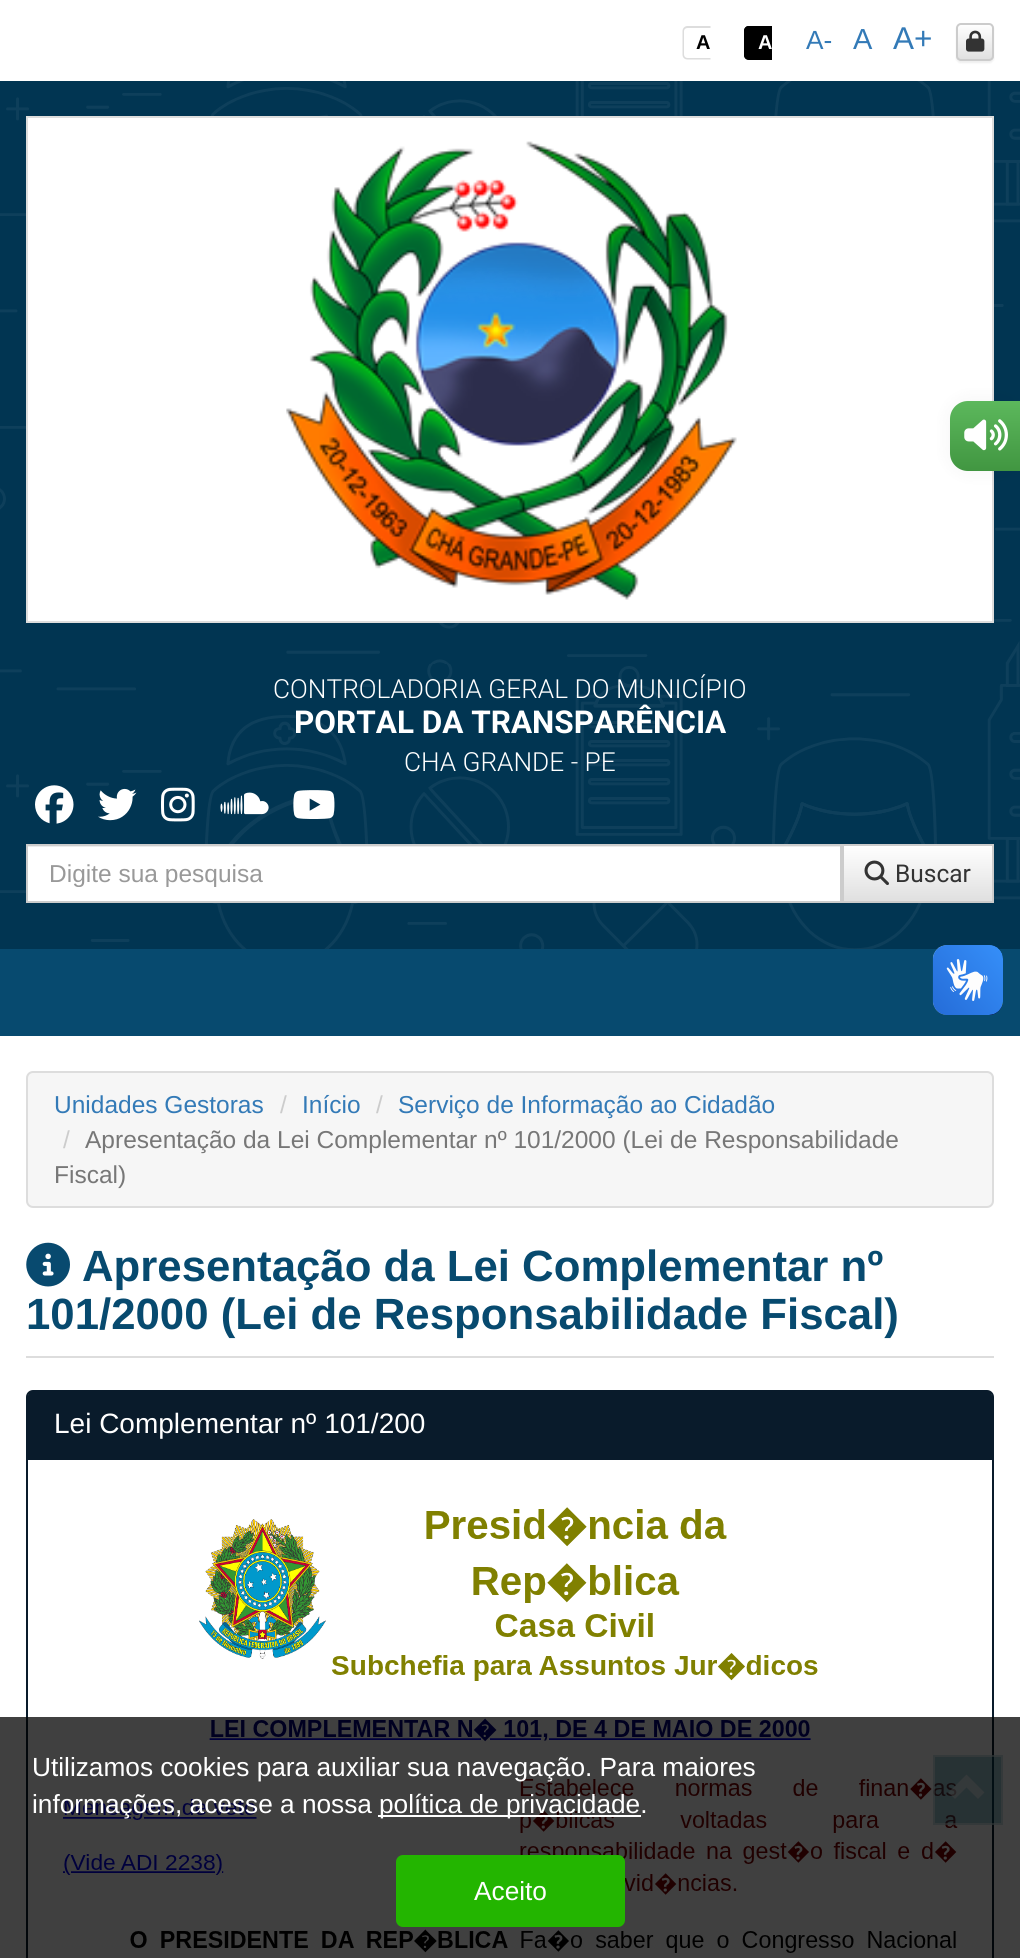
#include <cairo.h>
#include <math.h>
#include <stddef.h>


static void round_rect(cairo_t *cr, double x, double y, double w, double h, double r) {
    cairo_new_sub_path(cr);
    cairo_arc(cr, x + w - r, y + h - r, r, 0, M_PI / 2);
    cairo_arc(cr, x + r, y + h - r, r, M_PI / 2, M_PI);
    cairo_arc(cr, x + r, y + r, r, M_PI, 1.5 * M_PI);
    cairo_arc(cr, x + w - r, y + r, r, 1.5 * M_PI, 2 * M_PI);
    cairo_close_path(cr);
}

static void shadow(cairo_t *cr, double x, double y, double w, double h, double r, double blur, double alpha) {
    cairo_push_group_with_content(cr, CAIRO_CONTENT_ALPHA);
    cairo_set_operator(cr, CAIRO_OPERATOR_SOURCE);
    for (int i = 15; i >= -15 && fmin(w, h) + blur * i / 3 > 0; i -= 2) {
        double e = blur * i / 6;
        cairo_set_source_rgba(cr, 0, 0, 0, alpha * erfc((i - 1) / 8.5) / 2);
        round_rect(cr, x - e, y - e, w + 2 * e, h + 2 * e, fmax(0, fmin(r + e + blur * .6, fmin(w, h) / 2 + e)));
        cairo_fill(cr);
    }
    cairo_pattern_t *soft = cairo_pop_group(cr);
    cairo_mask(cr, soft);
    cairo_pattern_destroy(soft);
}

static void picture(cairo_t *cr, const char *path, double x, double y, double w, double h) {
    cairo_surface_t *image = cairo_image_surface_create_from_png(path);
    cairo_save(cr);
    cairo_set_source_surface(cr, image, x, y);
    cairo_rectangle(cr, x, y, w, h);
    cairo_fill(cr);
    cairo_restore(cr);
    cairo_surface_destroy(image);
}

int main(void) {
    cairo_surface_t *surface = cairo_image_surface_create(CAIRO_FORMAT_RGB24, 1020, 1958);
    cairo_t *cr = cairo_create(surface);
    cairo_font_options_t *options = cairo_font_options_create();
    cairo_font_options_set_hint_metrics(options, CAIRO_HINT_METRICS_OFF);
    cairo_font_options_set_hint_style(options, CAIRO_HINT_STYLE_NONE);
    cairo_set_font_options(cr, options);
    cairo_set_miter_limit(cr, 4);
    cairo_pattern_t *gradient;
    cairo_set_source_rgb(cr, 1, 1, 1);
    cairo_paint(cr);
    cairo_set_source_rgb(cr, 0.867, 0.867, 0.867);
    cairo_set_fill_rule(cr, CAIRO_FILL_RULE_EVEN_ODD);
    cairo_new_path(cr);
    cairo_move_to(cr, 687.5, 26);
    cairo_line_to(cr, 710.5, 26);
    cairo_line_to(cr, 710.5, 59.5);
    cairo_line_to(cr, 687.5, 59.5);
    cairo_curve_to(cr, 684.5, 59.5, 682.5, 57.5, 682.5, 54.5);
    cairo_line_to(cr, 682.5, 31);
    cairo_curve_to(cr, 682.5, 28.5, 684.5, 26, 687.5, 26);
    cairo_close_path(cr);
    cairo_move_to(cr, 687.5, 28);
    cairo_line_to(cr, 710.5, 28);
    cairo_line_to(cr, 710.5, 58);
    cairo_line_to(cr, 687.5, 58);
    cairo_curve_to(cr, 685.5, 58, 684, 56.5, 684, 54.5);
    cairo_line_to(cr, 684, 31);
    cairo_curve_to(cr, 684, 29.5, 685.5, 28, 687.5, 28);
    cairo_close_path(cr);
    cairo_fill(cr);
    cairo_select_font_face(cr, "Liberation Sans", CAIRO_FONT_SLANT_NORMAL, CAIRO_FONT_WEIGHT_BOLD);
    cairo_set_font_size(cr, 20);
    cairo_set_source_rgb(cr, 0, 0, 0);
    cairo_move_to(cr, 696, 49);
    cairo_show_text(cr, "A");
    cairo_new_path(cr);
    cairo_move_to(cr, 749, 26);
    cairo_line_to(cr, 772, 26);
    cairo_line_to(cr, 772, 60);
    cairo_line_to(cr, 749, 60);
    cairo_curve_to(cr, 746, 60, 744, 58, 744, 55);
    cairo_line_to(cr, 744, 31);
    cairo_curve_to(cr, 744, 28, 746, 26, 749, 26);
    cairo_close_path(cr);
    cairo_fill(cr);
    cairo_new_path(cr);
    cairo_move_to(cr, 748.5, 26);
    cairo_line_to(cr, 772, 26);
    cairo_line_to(cr, 772, 59.5);
    cairo_line_to(cr, 748.5, 59.5);
    cairo_curve_to(cr, 746, 59.5, 744, 57.5, 744, 54.5);
    cairo_line_to(cr, 744, 31);
    cairo_curve_to(cr, 744, 28.5, 746, 26, 748.5, 26);
    cairo_close_path(cr);
    cairo_move_to(cr, 748.5, 28);
    cairo_line_to(cr, 772, 28);
    cairo_line_to(cr, 772, 58);
    cairo_line_to(cr, 748.5, 58);
    cairo_curve_to(cr, 747, 58, 745.5, 56.5, 745.5, 54.5);
    cairo_line_to(cr, 745.5, 31);
    cairo_curve_to(cr, 745.5, 29.5, 747, 28, 748.5, 28);
    cairo_close_path(cr);
    cairo_fill(cr);
    cairo_set_source_rgb(cr, 1, 1, 1);
    cairo_move_to(cr, 758, 49);
    cairo_show_text(cr, "A");
    cairo_select_font_face(cr, "Liberation Sans", CAIRO_FONT_SLANT_NORMAL, CAIRO_FONT_WEIGHT_NORMAL);
    cairo_set_font_size(cr, 26.25);
    cairo_set_source_rgb(cr, 0.2, 0.478, 0.718);
    cairo_move_to(cr, 806, 49);
    cairo_show_text(cr, "A-");
    cairo_set_font_size(cr, 29);
    cairo_move_to(cr, 853, 49);
    cairo_show_text(cr, "A");
    cairo_set_font_size(cr, 31.5);
    cairo_move_to(cr, 893, 49);
    cairo_show_text(cr, "A+");
    cairo_set_source_rgb(cr, 0, 0, 0);
    shadow(cr, 956, 25, 38, 38, 5, 1, 0.07);
    cairo_save(cr);
    cairo_set_fill_rule(cr, CAIRO_FILL_RULE_WINDING);
    round_rect(cr, 956, 23, 38, 38, 5);
    cairo_clip(cr);
    gradient = cairo_pattern_create_linear(975, 24, 975, 60);
    cairo_pattern_add_color_stop_rgba(gradient, 0, 1, 1, 1, 1);
    cairo_pattern_add_color_stop_rgba(gradient, 1, 0.878, 0.878, 0.878, 1);
    cairo_set_source(cr, gradient);
    cairo_pattern_destroy(gradient);
    cairo_rectangle(cr, 956, 25, 38, 35);
    cairo_fill(cr);
    cairo_restore(cr);
    round_rect(cr, 957, 24, 36, 36, 4);
    cairo_set_source_rgb(cr, 0.8, 0.8, 0.8);
    cairo_stroke(cr);
    picture(cr, "img1.png", 966, 30, 19, 22);
    cairo_set_source_rgb(cr, 0.004, 0.208, 0.322);
    cairo_rectangle(cr, 0, 81, 1020, 868);
    cairo_fill(cr);
    picture(cr, "img3.png", 0, 81, 1020, 868);
    cairo_set_source_rgb(cr, 1, 1, 1);
    cairo_rectangle(cr, 27, 117, 966, 505);
    cairo_fill_preserve(cr);
    cairo_set_source_rgb(cr, 0.867, 0.867, 0.867);
    cairo_stroke(cr);
    cairo_set_source_rgb(cr, 0, 0, 0);
    shadow(cr, 950, 401, 70, 70, 18, 9, 0.05);
    gradient = cairo_pattern_create_linear(985, 401, 985, 471);
    cairo_pattern_add_color_stop_rgba(gradient, 0, 0.361, 0.722, 0.361, 1);
    cairo_pattern_add_color_stop_rgba(gradient, 1, 0.255, 0.588, 0.255, 1);
    cairo_set_source(cr, gradient);
    cairo_pattern_destroy(gradient);
    cairo_new_path(cr);
    cairo_move_to(cr, 968, 401);
    cairo_line_to(cr, 1020, 401);
    cairo_line_to(cr, 1020, 471);
    cairo_line_to(cr, 968, 471);
    cairo_curve_to(cr, 958, 471, 950, 463, 950, 453);
    cairo_line_to(cr, 950, 419);
    cairo_curve_to(cr, 950, 409, 958, 401, 968, 401);
    cairo_close_path(cr);
    cairo_fill(cr);
    picture(cr, "img2.png", 964, 419, 44, 32);
    round_rect(cr, 27, 1391, 966, 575, 6);
    cairo_set_source_rgb(cr, 0.039, 0.106, 0.169);
    cairo_stroke(cr);
    picture(cr, "img14.png", 63, 1507, 895, 446);
    cairo_set_source_rgba(cr, 0.035, 0.443, 0.537, 0.4);
    cairo_rectangle(cr, 933, 1755, 70, 70);
    cairo_fill(cr);
    cairo_rectangle(cr, 934, 1756, 68, 68);
    cairo_set_source_rgba(cr, 1, 1, 1, 0.5);
    cairo_stroke(cr);
    cairo_set_fill_rule(cr, CAIRO_FILL_RULE_WINDING);
    cairo_new_path(cr);
    cairo_move_to(cr, 984.5, 1792.5);
    cairo_line_to(cr, 978, 1799);
    cairo_line_to(cr, 966.5, 1787.5);
    cairo_line_to(cr, 955, 1799);
    cairo_line_to(cr, 948.5, 1792.5);
    cairo_line_to(cr, 966.5, 1774.5);
    cairo_close_path(cr);
    cairo_fill(cr);
    picture(cr, "img4.png", 286, 141, 451, 459);
    cairo_select_font_face(cr, "Roboto Light", CAIRO_FONT_SLANT_NORMAL, CAIRO_FONT_WEIGHT_NORMAL);
    cairo_set_font_size(cr, 26.25);
    cairo_set_source_rgb(cr, 1, 1, 1);
    cairo_move_to(cr, 273, 698);
    cairo_show_text(cr, "CONTROLADORIA GERAL DO MUNICÍPIO");
    cairo_select_font_face(cr, "Roboto", CAIRO_FONT_SLANT_NORMAL, CAIRO_FONT_WEIGHT_BOLD);
    cairo_set_font_size(cr, 31.5);
    cairo_move_to(cr, 294, 733);
    cairo_show_text(cr, "PORTAL DA TRANSPARÊNCIA");
    cairo_select_font_face(cr, "Roboto Light", CAIRO_FONT_SLANT_NORMAL, CAIRO_FONT_WEIGHT_NORMAL);
    cairo_set_font_size(cr, 26.25);
    cairo_move_to(cr, 404, 771);
    cairo_show_text(cr, "CHA GRANDE - PE");
    picture(cr, "img5.png", 35, 785, 39, 39);
    picture(cr, "img6.png", 98, 788, 39, 33);
    picture(cr, "img7.png", 161, 787, 34, 35);
    picture(cr, "img8.png", 220, 792, 49, 23);
    picture(cr, "img9.png", 293, 790, 42, 29);
    cairo_rectangle(cr, 28, 847, 812, 54);
    cairo_fill(cr);
    cairo_set_source_rgb(cr, 0.925, 0.925, 0.925);
    cairo_rectangle(cr, 28, 846, 812, 1);
    cairo_fill(cr);
    cairo_rectangle(cr, 27, 845, 814, 57);
    cairo_set_source_rgb(cr, 0.8, 0.8, 0.8);
    cairo_stroke(cr);
    cairo_save(cr);
    cairo_rectangle(cr, 49, 859, 770, 28);
    cairo_clip(cr);
    cairo_select_font_face(cr, "Liberation Sans", CAIRO_FONT_SLANT_NORMAL, CAIRO_FONT_WEIGHT_NORMAL);
    cairo_set_font_size(cr, 24.5);
    cairo_set_source_rgb(cr, 0.6, 0.6, 0.6);
    cairo_move_to(cr, 49, 882);
    cairo_show_text(cr, "Digite sua pesquisa");
    cairo_restore(cr);
    gradient = cairo_pattern_create_linear(918, 845, 918, 901);
    cairo_pattern_add_color_stop_rgba(gradient, 0, 1, 1, 1, 1);
    cairo_pattern_add_color_stop_rgba(gradient, 1, 0.878, 0.878, 0.878, 1);
    cairo_set_source(cr, gradient);
    cairo_pattern_destroy(gradient);
    cairo_rectangle(cr, 844, 846, 148, 55);
    cairo_fill(cr);
    cairo_rectangle(cr, 843, 845, 150, 57);
    cairo_set_source_rgb(cr, 0.8, 0.8, 0.8);
    cairo_stroke(cr);
    picture(cr, "img10.png", 864, 860, 25, 25);
    cairo_select_font_face(cr, "Roboto", CAIRO_FONT_SLANT_NORMAL, CAIRO_FONT_WEIGHT_NORMAL);
    cairo_set_font_size(cr, 24.5);
    cairo_set_source_rgb(cr, 0.2, 0.2, 0.2);
    cairo_move_to(cr, 895, 882);
    cairo_show_text(cr, "Buscar");
    cairo_set_source_rgb(cr, 0.031, 0.29, 0.435);
    cairo_rectangle(cr, 0, 949, 1020, 87);
    cairo_fill(cr);
    picture(cr, "img11.png", 932, 945, 71, 70);
    picture(cr, "img12.png", 933, 945, 70, 70);
    cairo_set_source_rgb(cr, 0.961, 0.961, 0.961);
    round_rect(cr, 27, 1072, 966, 135, 6);
    cairo_fill_preserve(cr);
    cairo_set_source_rgb(cr, 0.867, 0.867, 0.867);
    cairo_stroke(cr);
    cairo_select_font_face(cr, "Liberation Sans", CAIRO_FONT_SLANT_NORMAL, CAIRO_FONT_WEIGHT_NORMAL);
    cairo_set_source_rgb(cr, 0.2, 0.478, 0.718);
    cairo_move_to(cr, 54, 1113);
    cairo_show_text(cr, "Unidades Gestoras");
    cairo_set_source_rgb(cr, 0.8, 0.8, 0.8);
    cairo_move_to(cr, 280, 1113);
    cairo_show_text(cr, "/");
    cairo_set_source_rgb(cr, 0.2, 0.478, 0.718);
    cairo_move_to(cr, 302, 1113);
    cairo_show_text(cr, "Início");
    cairo_set_source_rgb(cr, 0.8, 0.8, 0.8);
    cairo_move_to(cr, 376, 1113);
    cairo_show_text(cr, "/");
    cairo_set_source_rgb(cr, 0.2, 0.478, 0.718);
    cairo_move_to(cr, 398, 1113);
    cairo_show_text(cr, "Serviço de Informação ao Cidadão");
    cairo_set_source_rgb(cr, 0.8, 0.8, 0.8);
    cairo_move_to(cr, 63, 1148);
    cairo_show_text(cr, "/");
    cairo_set_source_rgb(cr, 0.467, 0.467, 0.467);
    cairo_move_to(cr, 85, 1148);
    cairo_show_text(cr, "Apresentação da Lei Complementar nº 101/2000 (Lei de Responsabilidade");
    cairo_move_to(cr, 54, 1183);
    cairo_show_text(cr, "Fiscal)");
    cairo_set_source_rgb(cr, 0.867, 0.867, 0.867);
    cairo_rectangle(cr, 26, 1356, 968, 2);
    cairo_fill(cr);
    picture(cr, "img13.png", 26, 1242, 44, 45);
    cairo_select_font_face(cr, "Liberation Sans", CAIRO_FONT_SLANT_NORMAL, CAIRO_FONT_WEIGHT_BOLD);
    cairo_set_font_size(cr, 43.75);
    cairo_set_source_rgb(cr, 0.031, 0.29, 0.435);
    cairo_move_to(cr, 82, 1281);
    cairo_show_text(cr, "Apresentação da Lei Complementar nº");
    cairo_move_to(cr, 26, 1329);
    cairo_show_text(cr, "101/2000 (Lei de Responsabilidade Fiscal)");
    cairo_set_source_rgb(cr, 0.039, 0.106, 0.169);
    cairo_new_path(cr);
    cairo_move_to(cr, 33, 1391);
    cairo_line_to(cr, 987, 1391);
    cairo_curve_to(cr, 990, 1391, 992, 1393, 992, 1396);
    cairo_line_to(cr, 992, 1460);
    cairo_line_to(cr, 28, 1460);
    cairo_line_to(cr, 28, 1396);
    cairo_curve_to(cr, 28, 1393, 30, 1391, 33, 1391);
    cairo_close_path(cr);
    cairo_fill(cr);
    cairo_select_font_face(cr, "Liberation Sans", CAIRO_FONT_SLANT_NORMAL, CAIRO_FONT_WEIGHT_NORMAL);
    cairo_set_font_size(cr, 28);
    cairo_set_source_rgb(cr, 1, 1, 1);
    cairo_move_to(cr, 54, 1433);
    cairo_show_text(cr, "Lei Complementar nº 101/200");
    cairo_set_source_rgba(cr, 0, 0, 0, 0.75);
    cairo_rectangle(cr, 0, 1717, 1020, 241);
    cairo_fill(cr);
    cairo_set_font_size(cr, 26.25);
    cairo_set_source_rgb(cr, 1, 1, 1);
    cairo_move_to(cr, 32, 1776);
    cairo_show_text(cr, "Utilizamos cookies para auxiliar sua navegação. Para maiores");
    cairo_move_to(cr, 32, 1813);
    cairo_show_text(cr, "informações, acesse a nossa");
    cairo_rectangle(cr, 378, 1815, 263, 2);
    cairo_fill(cr);
    cairo_move_to(cr, 379, 1813);
    cairo_show_text(cr, "política de privacidade.");
    cairo_set_source_rgb(cr, 0.137, 0.71, 0);
    round_rect(cr, 396, 1855, 229, 72, 7);
    cairo_fill(cr);
    cairo_set_source_rgb(cr, 1, 1, 1);
    cairo_move_to(cr, 474, 1900);
    cairo_show_text(cr, "Aceito");
    cairo_surface_write_to_png(surface, "page.png");
    cairo_font_options_destroy(options);
    cairo_destroy(cr);
    cairo_surface_destroy(surface);
    return 0;
}
